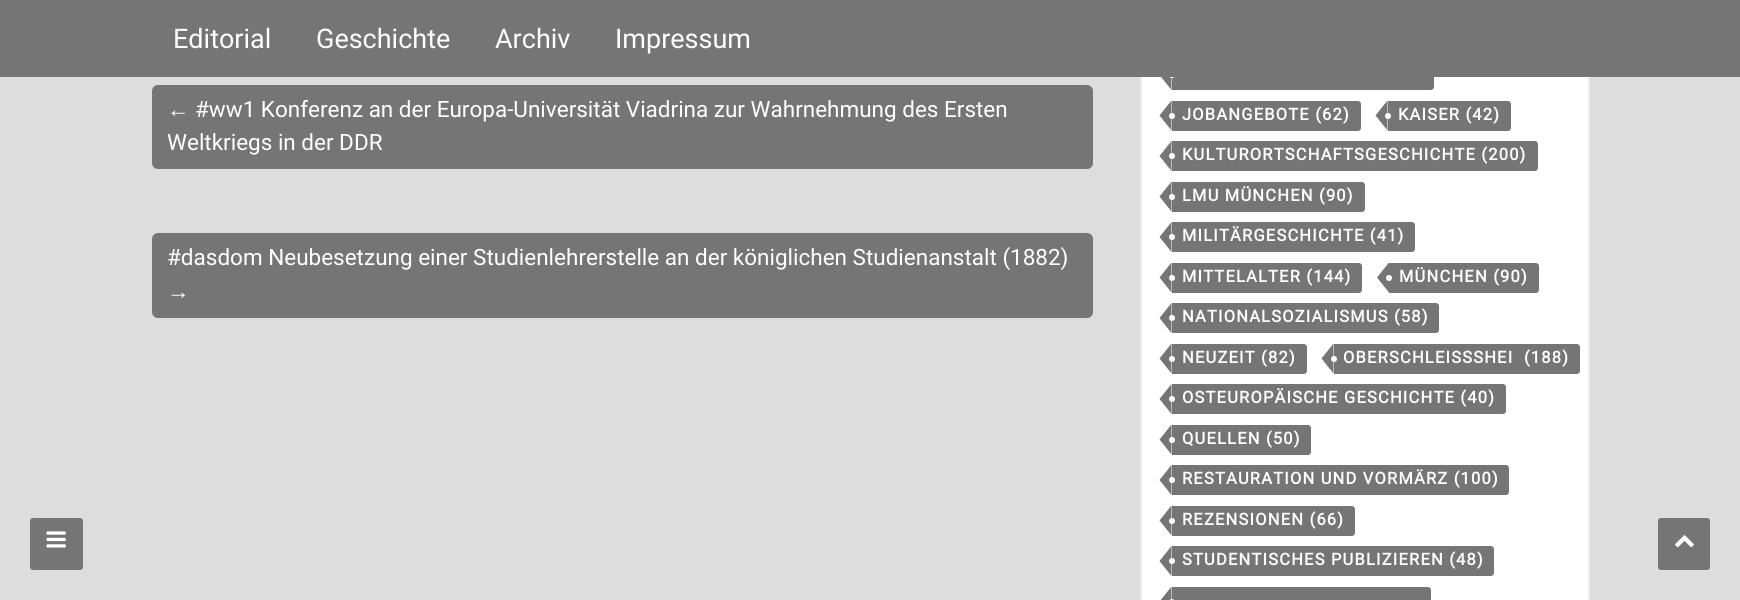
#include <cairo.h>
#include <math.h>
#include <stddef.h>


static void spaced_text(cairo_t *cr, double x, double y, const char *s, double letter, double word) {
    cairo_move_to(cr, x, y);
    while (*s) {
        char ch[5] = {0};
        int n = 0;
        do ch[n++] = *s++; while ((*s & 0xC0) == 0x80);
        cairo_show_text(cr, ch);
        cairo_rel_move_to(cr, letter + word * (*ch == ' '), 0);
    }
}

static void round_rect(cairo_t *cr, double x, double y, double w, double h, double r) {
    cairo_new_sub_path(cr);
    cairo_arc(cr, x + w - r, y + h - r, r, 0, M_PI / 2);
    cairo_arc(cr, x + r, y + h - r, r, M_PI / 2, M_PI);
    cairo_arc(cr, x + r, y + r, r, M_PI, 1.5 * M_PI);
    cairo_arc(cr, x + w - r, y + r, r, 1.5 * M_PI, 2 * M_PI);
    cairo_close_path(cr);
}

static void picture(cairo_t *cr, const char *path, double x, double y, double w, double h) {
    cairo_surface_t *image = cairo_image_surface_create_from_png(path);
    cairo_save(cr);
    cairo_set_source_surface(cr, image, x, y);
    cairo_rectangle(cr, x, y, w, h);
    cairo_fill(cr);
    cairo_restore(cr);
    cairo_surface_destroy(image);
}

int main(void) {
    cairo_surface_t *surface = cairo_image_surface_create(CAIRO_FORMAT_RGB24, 1740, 600);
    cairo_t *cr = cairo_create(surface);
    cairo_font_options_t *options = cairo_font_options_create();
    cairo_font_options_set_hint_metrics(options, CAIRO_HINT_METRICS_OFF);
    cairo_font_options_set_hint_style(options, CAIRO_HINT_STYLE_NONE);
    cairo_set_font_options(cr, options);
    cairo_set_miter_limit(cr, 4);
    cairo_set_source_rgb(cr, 0.867, 0.867, 0.867);
    cairo_paint(cr);
    cairo_set_source_rgb(cr, 1, 1, 1);
    cairo_rectangle(cr, 1142, 77, 446, 523);
    cairo_fill(cr);
    cairo_rectangle(cr, 1141, -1, 448, 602);
    cairo_set_source_rgb(cr, 0.929, 0.929, 0.929);
    cairo_stroke(cr);
    cairo_set_source_rgb(cr, 0.459, 0.459, 0.459);
    cairo_new_path(cr);
    cairo_move_to(cr, 1172, 60);
    cairo_line_to(cr, 1431, 60);
    cairo_curve_to(cr, 1432.5, 60, 1434, 61.5, 1434, 63);
    cairo_line_to(cr, 1434, 87);
    cairo_curve_to(cr, 1434, 88.5, 1432.5, 90, 1431, 90);
    cairo_line_to(cr, 1172, 90);
    cairo_close_path(cr);
    cairo_fill(cr);
    cairo_new_path(cr);
    cairo_move_to(cr, 1171.5, 60);
    cairo_line_to(cr, 1171.5, 90);
    cairo_line_to(cr, 1159.5, 75);
    cairo_close_path(cr);
    cairo_fill(cr);
    cairo_set_source_rgb(cr, 1, 1, 1);
    cairo_arc(cr, 1172, 75, 3, 0, 2 * M_PI);
    cairo_fill(cr);
    cairo_set_source_rgb(cr, 0.459, 0.459, 0.459);
    cairo_rectangle(cr, 0, 0, 1740, 77);
    cairo_fill(cr);
    cairo_select_font_face(cr, "Roboto", CAIRO_FONT_SLANT_NORMAL, CAIRO_FONT_WEIGHT_NORMAL);
    cairo_set_font_size(cr, 27);
    cairo_set_source_rgb(cr, 1, 1, 1);
    cairo_move_to(cr, 173, 48);
    cairo_show_text(cr, "Editorial");
    cairo_move_to(cr, 316, 48);
    cairo_show_text(cr, "Geschichte");
    cairo_move_to(cr, 495, 48);
    cairo_show_text(cr, "Archiv");
    cairo_move_to(cr, 615, 48);
    cairo_show_text(cr, "Impressum");
    cairo_set_source_rgb(cr, 0.459, 0.459, 0.459);
    round_rect(cr, 30, 518, 53, 52, 3);
    cairo_fill(cr);
    picture(cr, "img1.png", 46, 531, 20, 17);
    round_rect(cr, 151, 84, 943, 86, 7);
    cairo_fill_preserve(cr);
    cairo_set_source_rgb(cr, 0.867, 0.867, 0.867);
    cairo_stroke(cr);
    cairo_select_font_face(cr, "Liberation Sans", CAIRO_FONT_SLANT_NORMAL, CAIRO_FONT_WEIGHT_NORMAL);
    cairo_set_font_size(cr, 22.5);
    cairo_set_source_rgb(cr, 1, 1, 1);
    cairo_move_to(cr, 167, 117);
    cairo_show_text(cr, "←");
    cairo_select_font_face(cr, "Roboto", CAIRO_FONT_SLANT_NORMAL, CAIRO_FONT_WEIGHT_NORMAL);
    cairo_move_to(cr, 195, 117);
    cairo_show_text(cr, "#ww1 Konferenz an der Europa-Universität Viadrina zur Wahrnehmung des Ersten");
    cairo_move_to(cr, 167, 150);
    cairo_show_text(cr, "Weltkriegs in der DDR");
    cairo_set_source_rgb(cr, 0.459, 0.459, 0.459);
    round_rect(cr, 151, 232, 943, 87, 7);
    cairo_fill_preserve(cr);
    cairo_set_source_rgb(cr, 0.867, 0.867, 0.867);
    cairo_stroke(cr);
    cairo_set_source_rgb(cr, 1, 1, 1);
    cairo_move_to(cr, 167, 265);
    cairo_show_text(cr, "#dasdom Neubesetzung einer Studienlehrerstelle an der königlichen Studienanstalt (1882)");
    cairo_select_font_face(cr, "Liberation Sans", CAIRO_FONT_SLANT_NORMAL, CAIRO_FONT_WEIGHT_NORMAL);
    cairo_move_to(cr, 167, 299);
    cairo_show_text(cr, "→");
    cairo_set_source_rgb(cr, 0.459, 0.459, 0.459);
    cairo_new_path(cr);
    cairo_move_to(cr, 1172, 101);
    cairo_line_to(cr, 1358, 101);
    cairo_curve_to(cr, 1359.5, 101, 1361, 102.5, 1361, 104);
    cairo_line_to(cr, 1361, 128);
    cairo_curve_to(cr, 1361, 129.5, 1359.5, 131, 1358, 131);
    cairo_line_to(cr, 1172, 131);
    cairo_close_path(cr);
    cairo_fill(cr);
    cairo_new_path(cr);
    cairo_move_to(cr, 1171.5, 100.5);
    cairo_line_to(cr, 1171.5, 130.5);
    cairo_line_to(cr, 1159.5, 115.5);
    cairo_close_path(cr);
    cairo_fill(cr);
    cairo_select_font_face(cr, "Roboto", CAIRO_FONT_SLANT_NORMAL, CAIRO_FONT_WEIGHT_BOLD);
    cairo_set_font_size(cr, 16.5);
    cairo_set_source_rgb(cr, 1, 1, 1);
    spaced_text(cr, 1182, 120, "JOBANGEBOTE (62)", 1.2, 0);
    cairo_new_path(cr);
    cairo_arc(cr, 1172, 116, 3, 0, 2 * M_PI);
    cairo_fill(cr);
    cairo_set_source_rgb(cr, 0.459, 0.459, 0.459);
    cairo_new_path(cr);
    cairo_move_to(cr, 1388, 101);
    cairo_line_to(cr, 1508, 101);
    cairo_curve_to(cr, 1509.5, 101, 1511, 102.5, 1511, 104);
    cairo_line_to(cr, 1511, 128);
    cairo_curve_to(cr, 1511, 129.5, 1509.5, 131, 1508, 131);
    cairo_line_to(cr, 1388, 131);
    cairo_close_path(cr);
    cairo_fill(cr);
    cairo_new_path(cr);
    cairo_move_to(cr, 1387.5, 100.5);
    cairo_line_to(cr, 1387.5, 130.5);
    cairo_line_to(cr, 1375.5, 115.5);
    cairo_close_path(cr);
    cairo_fill(cr);
    cairo_set_source_rgb(cr, 1, 1, 1);
    spaced_text(cr, 1398, 120, "KAISER (42)", 1.2, 0);
    cairo_new_path(cr);
    cairo_arc(cr, 1388, 116, 3, 0, 2 * M_PI);
    cairo_fill(cr);
    cairo_set_source_rgb(cr, 0.459, 0.459, 0.459);
    cairo_new_path(cr);
    cairo_move_to(cr, 1172, 141);
    cairo_line_to(cr, 1535, 141);
    cairo_curve_to(cr, 1536.5, 141, 1538, 142.5, 1538, 144);
    cairo_line_to(cr, 1538, 168);
    cairo_curve_to(cr, 1538, 169.5, 1536.5, 171, 1535, 171);
    cairo_line_to(cr, 1172, 171);
    cairo_close_path(cr);
    cairo_fill(cr);
    cairo_new_path(cr);
    cairo_move_to(cr, 1171.5, 141);
    cairo_line_to(cr, 1171.5, 171);
    cairo_line_to(cr, 1159.5, 156);
    cairo_close_path(cr);
    cairo_fill(cr);
    cairo_set_source_rgb(cr, 1, 1, 1);
    spaced_text(cr, 1182, 160, "KULTURORTSCHAFTSGESCHICHTE (200)", 1.2, 0);
    cairo_new_path(cr);
    cairo_arc(cr, 1172, 156, 3, 0, 2 * M_PI);
    cairo_fill(cr);
    cairo_set_source_rgb(cr, 0.459, 0.459, 0.459);
    cairo_new_path(cr);
    cairo_move_to(cr, 1172, 182);
    cairo_line_to(cr, 1362, 182);
    cairo_curve_to(cr, 1363.5, 182, 1365, 183.5, 1365, 185);
    cairo_line_to(cr, 1365, 209);
    cairo_curve_to(cr, 1365, 210.5, 1363.5, 212, 1362, 212);
    cairo_line_to(cr, 1172, 212);
    cairo_close_path(cr);
    cairo_fill(cr);
    cairo_new_path(cr);
    cairo_move_to(cr, 1171.5, 181.5);
    cairo_line_to(cr, 1171.5, 211.5);
    cairo_line_to(cr, 1159.5, 196.5);
    cairo_close_path(cr);
    cairo_fill(cr);
    cairo_set_source_rgb(cr, 1, 1, 1);
    spaced_text(cr, 1182, 201, "LMU MÜNCHEN (90)", 1.2, 0);
    cairo_new_path(cr);
    cairo_arc(cr, 1172, 197, 3, 0, 2 * M_PI);
    cairo_fill(cr);
    cairo_set_source_rgb(cr, 0.459, 0.459, 0.459);
    cairo_new_path(cr);
    cairo_move_to(cr, 1172, 222);
    cairo_line_to(cr, 1412, 222);
    cairo_curve_to(cr, 1413.5, 222, 1415, 223.5, 1415, 225);
    cairo_line_to(cr, 1415, 249);
    cairo_curve_to(cr, 1415, 250.5, 1413.5, 252, 1412, 252);
    cairo_line_to(cr, 1172, 252);
    cairo_close_path(cr);
    cairo_fill(cr);
    cairo_new_path(cr);
    cairo_move_to(cr, 1171.5, 222);
    cairo_line_to(cr, 1171.5, 252);
    cairo_line_to(cr, 1159.5, 237);
    cairo_close_path(cr);
    cairo_fill(cr);
    cairo_set_source_rgb(cr, 1, 1, 1);
    spaced_text(cr, 1182, 241, "MILITÄRGESCHICHTE (41)", 1.2, 0);
    cairo_new_path(cr);
    cairo_arc(cr, 1172, 237, 3, 0, 2 * M_PI);
    cairo_fill(cr);
    cairo_set_source_rgb(cr, 0.459, 0.459, 0.459);
    cairo_new_path(cr);
    cairo_move_to(cr, 1172, 263);
    cairo_line_to(cr, 1359, 263);
    cairo_curve_to(cr, 1360.5, 263, 1362, 264.5, 1362, 266);
    cairo_line_to(cr, 1362, 290);
    cairo_curve_to(cr, 1362, 291.5, 1360.5, 293, 1359, 293);
    cairo_line_to(cr, 1172, 293);
    cairo_close_path(cr);
    cairo_fill(cr);
    cairo_new_path(cr);
    cairo_move_to(cr, 1171.5, 262.5);
    cairo_line_to(cr, 1171.5, 292.5);
    cairo_line_to(cr, 1159.5, 277.5);
    cairo_close_path(cr);
    cairo_fill(cr);
    cairo_set_source_rgb(cr, 1, 1, 1);
    spaced_text(cr, 1182, 282, "MITTELALTER (144)", 1.2, 0);
    cairo_new_path(cr);
    cairo_arc(cr, 1172, 278, 3, 0, 2 * M_PI);
    cairo_fill(cr);
    cairo_set_source_rgb(cr, 0.459, 0.459, 0.459);
    cairo_new_path(cr);
    cairo_move_to(cr, 1389, 263);
    cairo_line_to(cr, 1536, 263);
    cairo_curve_to(cr, 1537.5, 263, 1539, 264.5, 1539, 266);
    cairo_line_to(cr, 1539, 290);
    cairo_curve_to(cr, 1539, 291.5, 1537.5, 293, 1536, 293);
    cairo_line_to(cr, 1389, 293);
    cairo_close_path(cr);
    cairo_fill(cr);
    cairo_new_path(cr);
    cairo_move_to(cr, 1389, 262.5);
    cairo_line_to(cr, 1389, 292.5);
    cairo_line_to(cr, 1377, 277.5);
    cairo_close_path(cr);
    cairo_fill(cr);
    cairo_set_source_rgb(cr, 1, 1, 1);
    spaced_text(cr, 1399, 282, "MÜNCHEN (90)", 1.2, 0);
    cairo_new_path(cr);
    cairo_arc(cr, 1389, 278, 3, 0, 2 * M_PI);
    cairo_fill(cr);
    cairo_set_source_rgb(cr, 0.459, 0.459, 0.459);
    cairo_new_path(cr);
    cairo_move_to(cr, 1172, 303);
    cairo_line_to(cr, 1436, 303);
    cairo_curve_to(cr, 1437.5, 303, 1439, 304.5, 1439, 306);
    cairo_line_to(cr, 1439, 330);
    cairo_curve_to(cr, 1439, 331.5, 1437.5, 333, 1436, 333);
    cairo_line_to(cr, 1172, 333);
    cairo_close_path(cr);
    cairo_fill(cr);
    cairo_new_path(cr);
    cairo_move_to(cr, 1171.5, 303);
    cairo_line_to(cr, 1171.5, 333);
    cairo_line_to(cr, 1159.5, 318);
    cairo_close_path(cr);
    cairo_fill(cr);
    cairo_set_source_rgb(cr, 1, 1, 1);
    spaced_text(cr, 1182, 322, "NATIONALSOZIALISMUS (58)", 1.2, 0);
    cairo_new_path(cr);
    cairo_arc(cr, 1172, 318, 3, 0, 2 * M_PI);
    cairo_fill(cr);
    cairo_set_source_rgb(cr, 0.459, 0.459, 0.459);
    cairo_new_path(cr);
    cairo_move_to(cr, 1172, 344);
    cairo_line_to(cr, 1304, 344);
    cairo_curve_to(cr, 1305.5, 344, 1307, 345.5, 1307, 347);
    cairo_line_to(cr, 1307, 371);
    cairo_curve_to(cr, 1307, 372.5, 1305.5, 374, 1304, 374);
    cairo_line_to(cr, 1172, 374);
    cairo_close_path(cr);
    cairo_fill(cr);
    cairo_new_path(cr);
    cairo_move_to(cr, 1171.5, 343.5);
    cairo_line_to(cr, 1171.5, 373.5);
    cairo_line_to(cr, 1159.5, 358.5);
    cairo_close_path(cr);
    cairo_fill(cr);
    cairo_set_source_rgb(cr, 1, 1, 1);
    spaced_text(cr, 1182, 363, "NEUZEIT (82)", 1.2, 0);
    cairo_new_path(cr);
    cairo_arc(cr, 1172, 359, 3, 0, 2 * M_PI);
    cairo_fill(cr);
    cairo_set_source_rgb(cr, 0.459, 0.459, 0.459);
    cairo_new_path(cr);
    cairo_move_to(cr, 1334, 344);
    cairo_line_to(cr, 1577, 344);
    cairo_curve_to(cr, 1578.5, 344, 1580, 345.5, 1580, 347);
    cairo_line_to(cr, 1580, 371);
    cairo_curve_to(cr, 1580, 372.5, 1578.5, 374, 1577, 374);
    cairo_line_to(cr, 1334, 374);
    cairo_close_path(cr);
    cairo_fill(cr);
    cairo_new_path(cr);
    cairo_move_to(cr, 1333.5, 343.5);
    cairo_line_to(cr, 1333.5, 373.5);
    cairo_line_to(cr, 1321.5, 358.5);
    cairo_close_path(cr);
    cairo_fill(cr);
    cairo_set_source_rgb(cr, 1, 1, 1);
    spaced_text(cr, 1343, 363, "OBERSCHLEISSSHEI", 1.2, 0);
    spaced_text(cr, 1524, 363, "(188)", 1.2, 0);
    cairo_new_path(cr);
    cairo_arc(cr, 1334, 359, 3, 0, 2 * M_PI);
    cairo_fill(cr);
    cairo_set_source_rgb(cr, 0.459, 0.459, 0.459);
    cairo_new_path(cr);
    cairo_move_to(cr, 1172, 384);
    cairo_line_to(cr, 1503, 384);
    cairo_curve_to(cr, 1504.5, 384, 1506, 385.5, 1506, 387);
    cairo_line_to(cr, 1506, 411);
    cairo_curve_to(cr, 1506, 412.5, 1504.5, 414, 1503, 414);
    cairo_line_to(cr, 1172, 414);
    cairo_close_path(cr);
    cairo_fill(cr);
    cairo_new_path(cr);
    cairo_move_to(cr, 1171.5, 384);
    cairo_line_to(cr, 1171.5, 414);
    cairo_line_to(cr, 1159.5, 399);
    cairo_close_path(cr);
    cairo_fill(cr);
    cairo_set_source_rgb(cr, 1, 1, 1);
    spaced_text(cr, 1182, 403, "OSTEUROPÄISCHE GESCHICHTE (40)", 1.2, 0);
    cairo_new_path(cr);
    cairo_arc(cr, 1172, 399, 3, 0, 2 * M_PI);
    cairo_fill(cr);
    cairo_set_source_rgb(cr, 0.459, 0.459, 0.459);
    cairo_new_path(cr);
    cairo_move_to(cr, 1172, 425);
    cairo_line_to(cr, 1308, 425);
    cairo_curve_to(cr, 1309.5, 425, 1311, 426.5, 1311, 428);
    cairo_line_to(cr, 1311, 452);
    cairo_curve_to(cr, 1311, 453.5, 1309.5, 455, 1308, 455);
    cairo_line_to(cr, 1172, 455);
    cairo_close_path(cr);
    cairo_fill(cr);
    cairo_new_path(cr);
    cairo_move_to(cr, 1171.5, 424.5);
    cairo_line_to(cr, 1171.5, 454.5);
    cairo_line_to(cr, 1159.5, 439.5);
    cairo_close_path(cr);
    cairo_fill(cr);
    cairo_set_source_rgb(cr, 1, 1, 1);
    spaced_text(cr, 1182, 444, "QUELLEN (50)", 1.2, 0);
    cairo_new_path(cr);
    cairo_arc(cr, 1172, 440, 3, 0, 2 * M_PI);
    cairo_fill(cr);
    cairo_set_source_rgb(cr, 0.459, 0.459, 0.459);
    cairo_new_path(cr);
    cairo_move_to(cr, 1172, 465);
    cairo_line_to(cr, 1506, 465);
    cairo_curve_to(cr, 1507.5, 465, 1509, 466.5, 1509, 468);
    cairo_line_to(cr, 1509, 492);
    cairo_curve_to(cr, 1509, 493.5, 1507.5, 495, 1506, 495);
    cairo_line_to(cr, 1172, 495);
    cairo_close_path(cr);
    cairo_fill(cr);
    cairo_new_path(cr);
    cairo_move_to(cr, 1171.5, 465);
    cairo_line_to(cr, 1171.5, 495);
    cairo_line_to(cr, 1159.5, 480);
    cairo_close_path(cr);
    cairo_fill(cr);
    cairo_set_source_rgb(cr, 1, 1, 1);
    spaced_text(cr, 1182, 484, "RESTAURATION UND VORMÄRZ (100)", 1.2, 0);
    cairo_new_path(cr);
    cairo_arc(cr, 1172, 480, 3, 0, 2 * M_PI);
    cairo_fill(cr);
    cairo_set_source_rgb(cr, 0.459, 0.459, 0.459);
    cairo_new_path(cr);
    cairo_move_to(cr, 1172, 506);
    cairo_line_to(cr, 1352, 506);
    cairo_curve_to(cr, 1353.5, 506, 1355, 507.5, 1355, 509);
    cairo_line_to(cr, 1355, 533);
    cairo_curve_to(cr, 1355, 534.5, 1353.5, 536, 1352, 536);
    cairo_line_to(cr, 1172, 536);
    cairo_close_path(cr);
    cairo_fill(cr);
    cairo_new_path(cr);
    cairo_move_to(cr, 1171.5, 505.5);
    cairo_line_to(cr, 1171.5, 535.5);
    cairo_line_to(cr, 1159.5, 520.5);
    cairo_close_path(cr);
    cairo_fill(cr);
    cairo_set_source_rgb(cr, 1, 1, 1);
    spaced_text(cr, 1182, 525, "REZENSIONEN (66)", 1.2, 0);
    cairo_new_path(cr);
    cairo_arc(cr, 1172, 521, 3, 0, 2 * M_PI);
    cairo_fill(cr);
    cairo_set_source_rgb(cr, 0.459, 0.459, 0.459);
    cairo_new_path(cr);
    cairo_move_to(cr, 1172, 546);
    cairo_line_to(cr, 1491, 546);
    cairo_curve_to(cr, 1492.5, 546, 1494, 547.5, 1494, 549);
    cairo_line_to(cr, 1494, 573);
    cairo_curve_to(cr, 1494, 574.5, 1492.5, 576, 1491, 576);
    cairo_line_to(cr, 1172, 576);
    cairo_close_path(cr);
    cairo_fill(cr);
    cairo_new_path(cr);
    cairo_move_to(cr, 1171.5, 546);
    cairo_line_to(cr, 1171.5, 576);
    cairo_line_to(cr, 1159.5, 561);
    cairo_close_path(cr);
    cairo_fill(cr);
    cairo_set_source_rgb(cr, 1, 1, 1);
    spaced_text(cr, 1182, 565, "STUDENTISCHES PUBLIZIEREN (48)", 1.2, 0);
    cairo_new_path(cr);
    cairo_arc(cr, 1172, 561, 3, 0, 2 * M_PI);
    cairo_fill(cr);
    cairo_set_source_rgb(cr, 0.459, 0.459, 0.459);
    cairo_new_path(cr);
    cairo_move_to(cr, 1172, 587);
    cairo_line_to(cr, 1428, 587);
    cairo_curve_to(cr, 1429.5, 587, 1431, 588.5, 1431, 590);
    cairo_line_to(cr, 1431, 600);
    cairo_curve_to(cr, 1431, 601.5, 1429.5, 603, 1428, 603);
    cairo_line_to(cr, 1172, 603);
    cairo_close_path(cr);
    cairo_fill(cr);
    cairo_new_path(cr);
    cairo_move_to(cr, 1171.5, 586.5);
    cairo_line_to(cr, 1171.5, 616.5);
    cairo_line_to(cr, 1159.5, 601.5);
    cairo_close_path(cr);
    cairo_fill(cr);
    cairo_set_source_rgb(cr, 1, 1, 1);
    round_rect(cr, 1169, 599, 6, 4, 3);
    cairo_fill(cr);
    cairo_set_source_rgb(cr, 0.459, 0.459, 0.459);
    round_rect(cr, 1658, 518, 52, 52, 3);
    cairo_fill(cr);
    picture(cr, "img2.png", 1675, 535, 19, 13);
    cairo_surface_write_to_png(surface, "page.png");
    cairo_font_options_destroy(options);
    cairo_destroy(cr);
    cairo_surface_destroy(surface);
    return 0;
}
